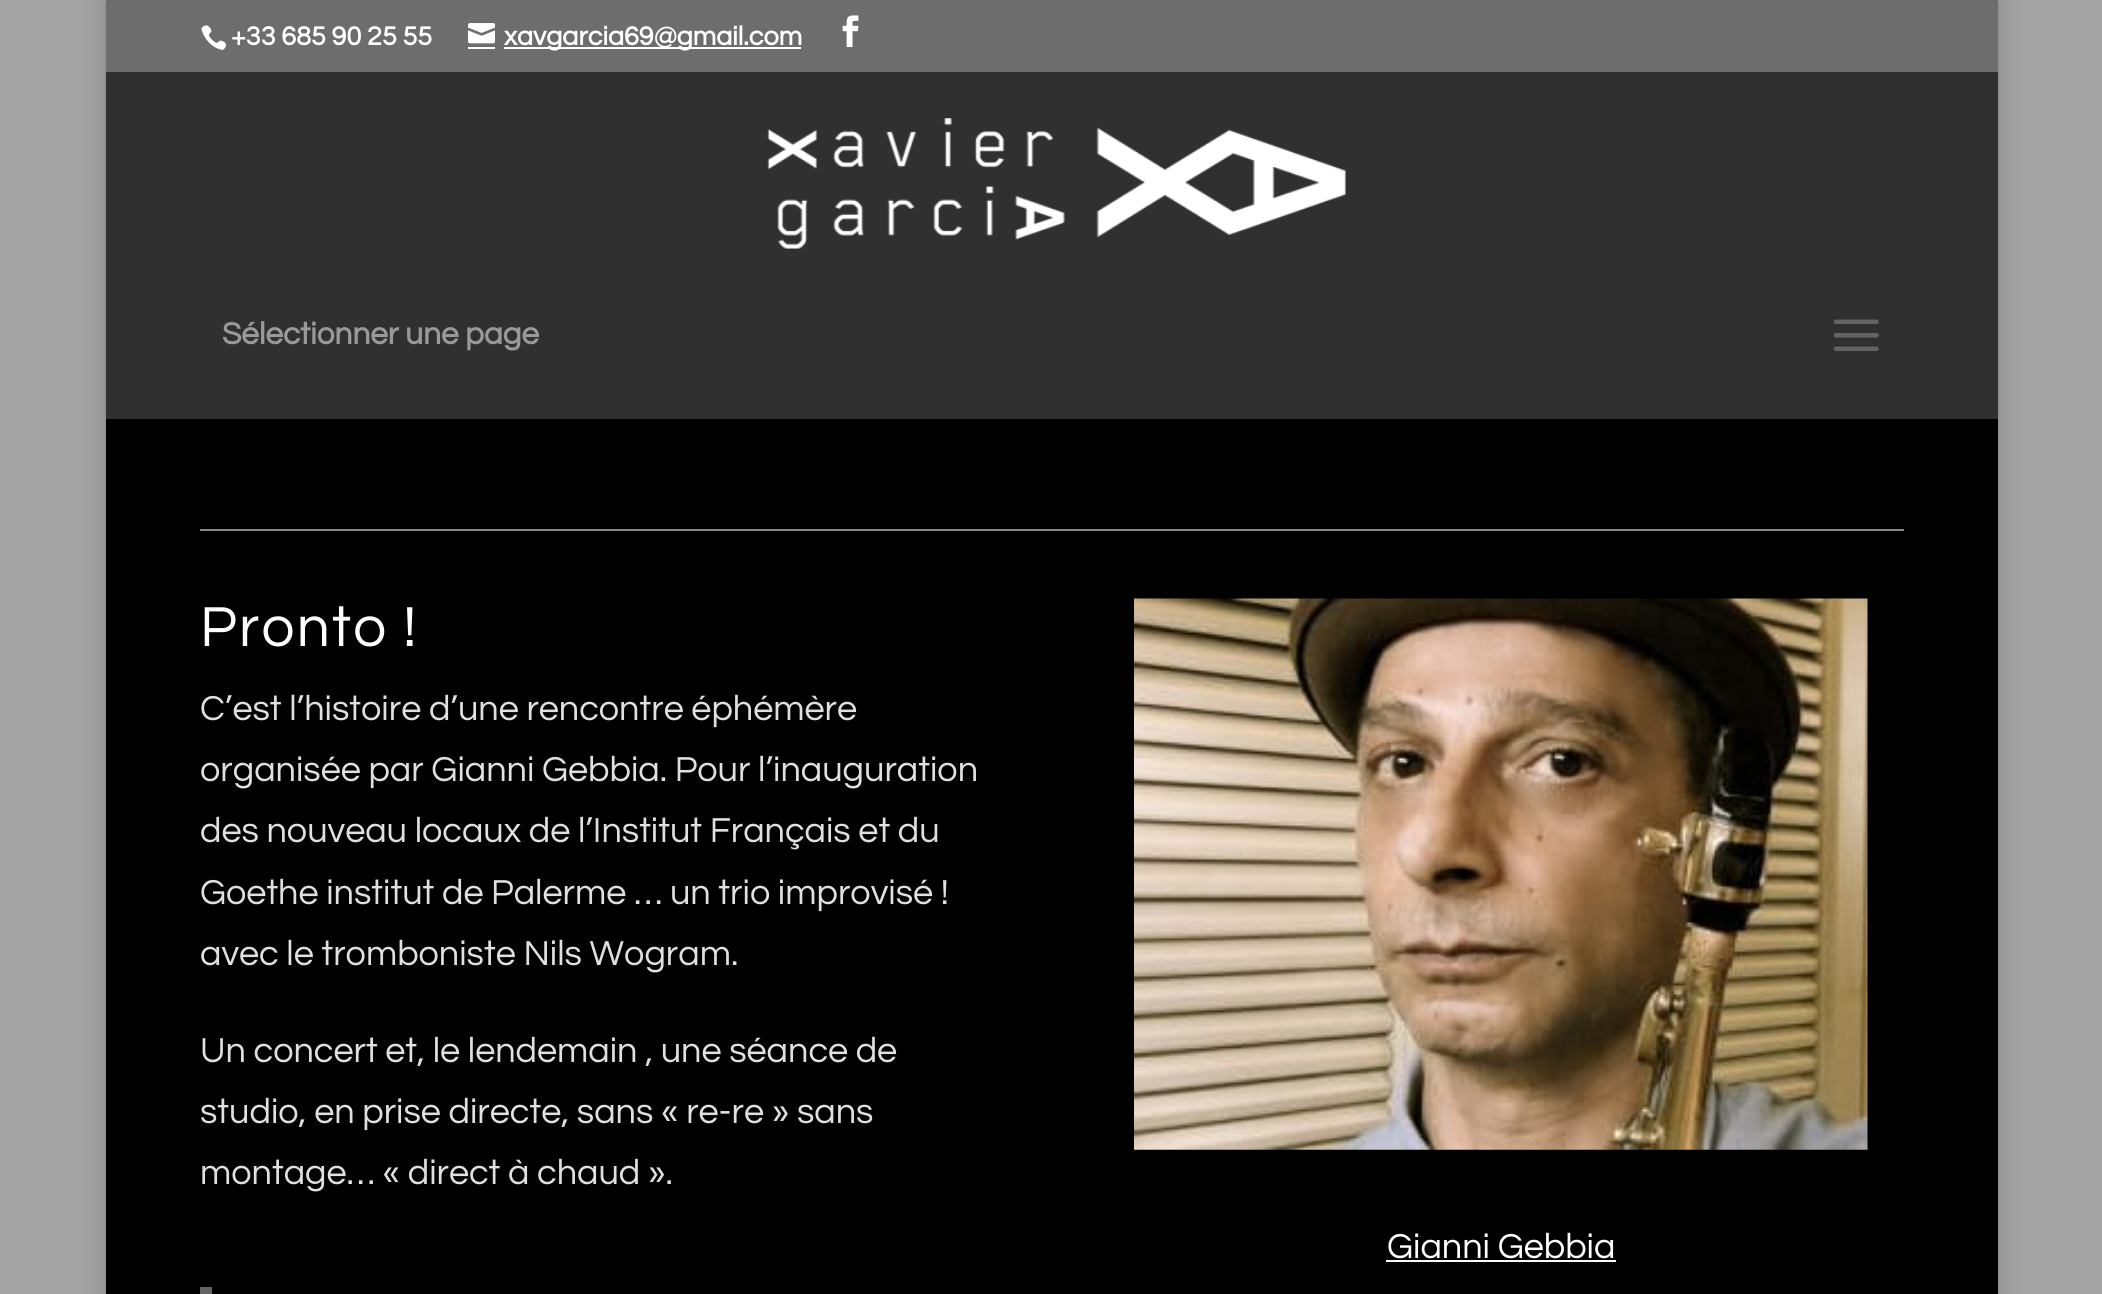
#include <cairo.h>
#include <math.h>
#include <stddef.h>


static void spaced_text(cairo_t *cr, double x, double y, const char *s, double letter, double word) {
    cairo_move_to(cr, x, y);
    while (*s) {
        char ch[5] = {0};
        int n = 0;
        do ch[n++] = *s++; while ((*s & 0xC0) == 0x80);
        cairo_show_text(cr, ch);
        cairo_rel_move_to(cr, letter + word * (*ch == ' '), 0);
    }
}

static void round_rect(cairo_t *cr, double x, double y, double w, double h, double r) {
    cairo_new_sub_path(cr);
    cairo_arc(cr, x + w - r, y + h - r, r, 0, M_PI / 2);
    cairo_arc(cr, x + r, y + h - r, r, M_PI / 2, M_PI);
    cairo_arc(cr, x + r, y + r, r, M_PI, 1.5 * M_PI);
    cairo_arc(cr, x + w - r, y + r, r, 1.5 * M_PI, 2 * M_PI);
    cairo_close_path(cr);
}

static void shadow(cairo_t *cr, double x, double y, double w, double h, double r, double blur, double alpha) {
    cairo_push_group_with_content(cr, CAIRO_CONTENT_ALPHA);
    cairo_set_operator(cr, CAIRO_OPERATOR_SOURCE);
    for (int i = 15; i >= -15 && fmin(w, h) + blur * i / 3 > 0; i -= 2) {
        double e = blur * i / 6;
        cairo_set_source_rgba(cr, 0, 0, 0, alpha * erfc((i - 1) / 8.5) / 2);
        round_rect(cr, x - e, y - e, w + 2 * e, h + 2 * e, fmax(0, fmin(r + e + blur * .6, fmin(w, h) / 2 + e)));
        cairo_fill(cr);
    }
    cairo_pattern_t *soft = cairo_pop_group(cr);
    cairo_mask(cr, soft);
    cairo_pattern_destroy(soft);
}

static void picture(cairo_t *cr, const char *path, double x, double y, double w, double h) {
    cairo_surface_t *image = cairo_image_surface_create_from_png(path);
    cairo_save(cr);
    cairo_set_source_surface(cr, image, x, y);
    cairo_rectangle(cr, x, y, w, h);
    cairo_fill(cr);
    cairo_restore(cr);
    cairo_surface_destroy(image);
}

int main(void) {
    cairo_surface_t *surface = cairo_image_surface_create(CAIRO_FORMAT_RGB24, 2102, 1294);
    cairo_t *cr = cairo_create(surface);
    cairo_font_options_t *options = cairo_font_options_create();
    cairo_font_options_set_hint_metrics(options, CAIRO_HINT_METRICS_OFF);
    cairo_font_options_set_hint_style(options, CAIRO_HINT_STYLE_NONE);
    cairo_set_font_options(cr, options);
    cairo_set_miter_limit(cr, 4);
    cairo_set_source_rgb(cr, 0.639, 0.639, 0.639);
    cairo_paint(cr);
    cairo_set_source_rgb(cr, 0, 0, 0);
    shadow(cr, 106, 0, 1892, 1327, 0, 11, 0.2);
    cairo_set_source_rgb(cr, 0.427, 0.427, 0.427);
    cairo_rectangle(cr, 106, 0, 1892, 72);
    cairo_fill(cr);
    picture(cr, "img1.png", 201, 25, 26, 26);
    cairo_select_font_face(cr, "Questrial", CAIRO_FONT_SLANT_NORMAL, CAIRO_FONT_WEIGHT_BOLD);
    cairo_set_font_size(cr, 27);
    cairo_set_source_rgb(cr, 1, 1, 1);
    cairo_move_to(cr, 231, 45);
    cairo_show_text(cr, "+33 685 90 25 55");
    picture(cr, "img2.png", 468, 23, 27, 21);
    cairo_rectangle(cr, 504, 47, 297, 2);
    cairo_fill(cr);
    cairo_move_to(cr, 504, 45);
    cairo_show_text(cr, "xavgarcia69@gmail.com");
    cairo_rectangle(cr, 468, 47, 27, 2);
    cairo_fill(cr);
    picture(cr, "img3.png", 842, 15, 17, 32);
    cairo_set_source_rgb(cr, 0.188, 0.188, 0.188);
    cairo_rectangle(cr, 106, 72, 1892, 347);
    cairo_fill(cr);
    picture(cr, "img4.png", 767, 118, 579, 131);
    cairo_set_font_size(cr, 31.5);
    cairo_set_source_rgb(cr, 0.6, 0.6, 0.6);
    cairo_move_to(cr, 222, 344);
    cairo_show_text(cr, "Sélectionner une page");
    picture(cr, "img5.png", 1833, 319, 46, 32);
    cairo_set_source_rgb(cr, 0, 0, 0);
    cairo_rectangle(cr, 106, 419, 1892, 875);
    cairo_fill(cr);
    cairo_set_source_rgb(cr, 0.533, 0.533, 0.533);
    cairo_rectangle(cr, 200, 529, 1704, 2);
    cairo_fill(cr);
    cairo_select_font_face(cr, "Questrial", CAIRO_FONT_SLANT_NORMAL, CAIRO_FONT_WEIGHT_NORMAL);
    cairo_set_font_size(cr, 58.5);
    cairo_set_source_rgb(cr, 1, 1, 1);
    spaced_text(cr, 200, 646, "Pronto !", 2.25, 0);
    cairo_set_font_size(cr, 36);
    cairo_set_source_rgb(cr, 0.878, 0.878, 0.878);
    cairo_move_to(cr, 200, 720);
    cairo_show_text(cr, "C’est l’histoire d’une rencontre éphémère");
    cairo_move_to(cr, 200, 781);
    cairo_show_text(cr, "organisée par Gianni Gebbia. Pour l’inauguration");
    cairo_move_to(cr, 200, 842);
    cairo_show_text(cr, "des nouveau locaux de l’Institut Français et du");
    cairo_move_to(cr, 200, 904);
    cairo_show_text(cr, "Goethe institut de Palerme … un trio improvisé !");
    cairo_move_to(cr, 200, 965);
    cairo_show_text(cr, "avec le tromboniste Nils Wogram.");
    cairo_move_to(cr, 200, 1062);
    cairo_show_text(cr, "Un concert et, le lendemain , une séance de");
    cairo_move_to(cr, 200, 1123);
    cairo_show_text(cr, "studio, en prise directe, sans « re-re » sans");
    cairo_move_to(cr, 200, 1184);
    cairo_show_text(cr, "montage… « direct à chaud ».");
    cairo_set_source_rgb(cr, 0.388, 0.388, 0.388);
    cairo_rectangle(cr, 200, 1287, 12, 7);
    cairo_fill(cr);
    picture(cr, "img6.png", 1134, 598, 734, 552);
    cairo_set_source_rgb(cr, 1, 1, 1);
    cairo_move_to(cr, 1387, 1258);
    cairo_show_text(cr, "Gianni Gebbia");
    cairo_rectangle(cr, 1386, 1260, 230, 2);
    cairo_fill(cr);
    cairo_surface_write_to_png(surface, "page.png");
    cairo_font_options_destroy(options);
    cairo_destroy(cr);
    cairo_surface_destroy(surface);
    return 0;
}
